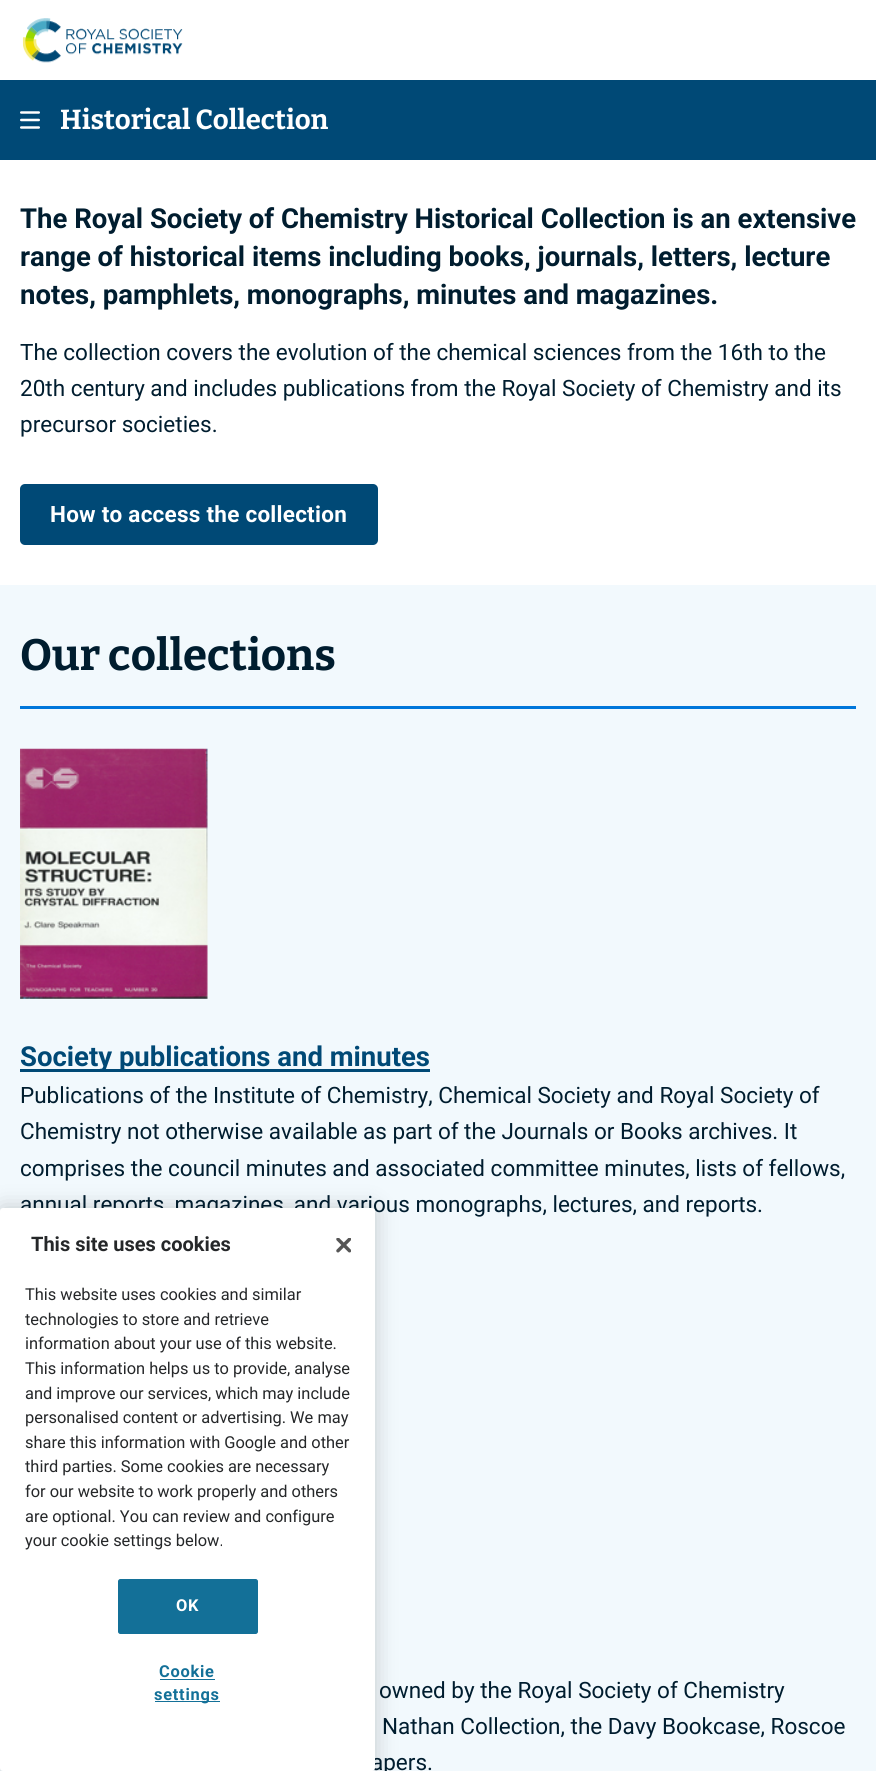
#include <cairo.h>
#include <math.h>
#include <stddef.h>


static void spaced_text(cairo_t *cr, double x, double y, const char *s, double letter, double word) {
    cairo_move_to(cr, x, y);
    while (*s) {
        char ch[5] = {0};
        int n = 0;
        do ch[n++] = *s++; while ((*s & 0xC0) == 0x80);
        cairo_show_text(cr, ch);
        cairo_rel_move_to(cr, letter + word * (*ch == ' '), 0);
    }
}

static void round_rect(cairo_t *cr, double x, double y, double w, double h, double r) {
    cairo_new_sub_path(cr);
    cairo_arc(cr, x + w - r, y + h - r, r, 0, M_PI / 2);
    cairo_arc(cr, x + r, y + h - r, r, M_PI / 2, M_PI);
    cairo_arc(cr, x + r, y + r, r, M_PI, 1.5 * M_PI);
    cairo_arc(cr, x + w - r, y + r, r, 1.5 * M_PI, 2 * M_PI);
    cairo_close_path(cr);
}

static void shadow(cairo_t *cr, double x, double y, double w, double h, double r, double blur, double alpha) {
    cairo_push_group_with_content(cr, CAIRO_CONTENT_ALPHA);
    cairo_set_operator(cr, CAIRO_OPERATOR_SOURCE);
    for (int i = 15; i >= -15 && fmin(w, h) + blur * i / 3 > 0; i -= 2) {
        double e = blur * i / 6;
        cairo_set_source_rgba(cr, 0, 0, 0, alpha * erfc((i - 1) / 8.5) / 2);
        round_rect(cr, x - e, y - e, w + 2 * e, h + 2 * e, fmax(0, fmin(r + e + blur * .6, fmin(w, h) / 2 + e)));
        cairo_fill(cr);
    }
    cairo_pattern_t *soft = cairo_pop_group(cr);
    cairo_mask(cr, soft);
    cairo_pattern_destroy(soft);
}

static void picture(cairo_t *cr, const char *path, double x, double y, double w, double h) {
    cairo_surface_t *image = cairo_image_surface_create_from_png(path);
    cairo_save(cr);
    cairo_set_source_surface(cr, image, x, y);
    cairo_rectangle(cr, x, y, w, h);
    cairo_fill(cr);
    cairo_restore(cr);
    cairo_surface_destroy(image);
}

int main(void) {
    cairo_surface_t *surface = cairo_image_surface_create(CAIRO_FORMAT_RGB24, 876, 1771);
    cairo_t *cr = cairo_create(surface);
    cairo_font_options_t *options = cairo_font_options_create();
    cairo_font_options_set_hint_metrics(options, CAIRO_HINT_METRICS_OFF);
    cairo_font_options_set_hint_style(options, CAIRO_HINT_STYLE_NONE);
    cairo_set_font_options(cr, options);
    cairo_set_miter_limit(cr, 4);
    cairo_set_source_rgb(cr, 1, 1, 1);
    cairo_paint(cr);
    picture(cr, "img1.png", 22, 18, 161, 45);
    cairo_set_source_rgb(cr, 0, 0.286, 0.463);
    cairo_rectangle(cr, 0, 80, 876, 80);
    cairo_fill(cr);
    picture(cr, "img2.png", 20, 111, 20, 18);
    cairo_select_font_face(cr, "Bitter Thin", CAIRO_FONT_SLANT_NORMAL, CAIRO_FONT_WEIGHT_NORMAL);
    cairo_set_font_size(cr, 27.5);
    cairo_set_source_rgb(cr, 1, 1, 1);
    cairo_move_to(cr, 60, 129);
    cairo_show_text(cr, "Historical Collection");
    cairo_select_font_face(cr, "Roboto", CAIRO_FONT_SLANT_NORMAL, CAIRO_FONT_WEIGHT_BOLD);
    cairo_set_source_rgb(cr, 0, 0.114, 0.184);
    cairo_move_to(cr, 20, 228);
    cairo_show_text(cr, "The Royal Society of Chemistry Historical Collection is an extensive");
    cairo_move_to(cr, 20, 266);
    cairo_show_text(cr, "range of historical items including books, journals, letters, lecture");
    cairo_move_to(cr, 20, 304);
    cairo_show_text(cr, "notes, pamphlets, monographs, minutes and magazines.");
    cairo_select_font_face(cr, "Roboto", CAIRO_FONT_SLANT_NORMAL, CAIRO_FONT_WEIGHT_NORMAL);
    cairo_set_font_size(cr, 22.5);
    cairo_move_to(cr, 20, 360);
    cairo_show_text(cr, "The collection covers the evolution of the chemical sciences from the 16th to the");
    cairo_move_to(cr, 20, 396);
    cairo_show_text(cr, "20th century and includes publications from the Royal Society of Chemistry and its");
    cairo_move_to(cr, 20, 432);
    cairo_show_text(cr, "precursor societies.");
    cairo_set_source_rgb(cr, 0, 0.286, 0.463);
    round_rect(cr, 20, 484, 358, 61, 5);
    cairo_fill(cr);
    cairo_select_font_face(cr, "Roboto", CAIRO_FONT_SLANT_NORMAL, CAIRO_FONT_WEIGHT_BOLD);
    cairo_set_source_rgb(cr, 1, 1, 1);
    spaced_text(cr, 50, 522, "How to access the collection", 0.25, 0);
    cairo_set_source_rgb(cr, 0.949, 0.973, 0.992);
    cairo_rectangle(cr, 0, 585, 876, 1186);
    cairo_fill(cr);
    cairo_set_source_rgb(cr, 0, 0.467, 0.859);
    cairo_rectangle(cr, 20, 706, 836, 3);
    cairo_fill(cr);
    cairo_select_font_face(cr, "Bitter Thin", CAIRO_FONT_SLANT_NORMAL, CAIRO_FONT_WEIGHT_NORMAL);
    cairo_set_font_size(cr, 43.75);
    cairo_set_source_rgb(cr, 0, 0.114, 0.184);
    cairo_move_to(cr, 20, 670);
    cairo_show_text(cr, "Our collections");
    picture(cr, "img3.png", 20, 748, 188, 251);
    cairo_set_source_rgb(cr, 0, 0.286, 0.463);
    cairo_rectangle(cr, 20, 1069, 410, 3);
    cairo_fill(cr);
    cairo_select_font_face(cr, "Roboto", CAIRO_FONT_SLANT_NORMAL, CAIRO_FONT_WEIGHT_BOLD);
    cairo_set_font_size(cr, 27.5);
    cairo_move_to(cr, 20, 1066);
    cairo_show_text(cr, "Society publications and minutes");
    cairo_select_font_face(cr, "Roboto", CAIRO_FONT_SLANT_NORMAL, CAIRO_FONT_WEIGHT_NORMAL);
    cairo_set_font_size(cr, 22.5);
    cairo_set_source_rgb(cr, 0, 0.114, 0.184);
    cairo_move_to(cr, 20, 1103);
    cairo_show_text(cr, "Publications of the Institute of Chemistry, Chemical Society and Royal Society of");
    cairo_move_to(cr, 20, 1139);
    cairo_show_text(cr, "Chemistry not otherwise available as part of the Journals or Books archives. It");
    cairo_move_to(cr, 20, 1176);
    cairo_show_text(cr, "comprises the council minutes and associated committee minutes, lists of fellows,");
    cairo_move_to(cr, 20, 1212);
    cairo_show_text(cr, "annual reports, magazines, and various monographs, lectures, and reports.");
    cairo_move_to(cr, 379, 1698);
    cairo_show_text(cr, "owned by the Royal Society of Chemistry");
    cairo_move_to(cr, 382, 1734);
    cairo_show_text(cr, "Nathan Collection, the Davy Bookcase, Roscoe");
    cairo_move_to(cr, 371, 1770);
    cairo_show_text(cr, "apers.");
    cairo_set_source_rgb(cr, 0, 0, 0);
    shadow(cr, 0, 1208, 375, 563, 3, 11, 0.2);
    cairo_set_source_rgb(cr, 1, 1, 1);
    round_rect(cr, 0, 1208, 375, 563, 3);
    cairo_fill(cr);
    cairo_select_font_face(cr, "Roboto", CAIRO_FONT_SLANT_NORMAL, CAIRO_FONT_WEIGHT_BOLD);
    cairo_set_font_size(cr, 20);
    cairo_set_source_rgb(cr, 0.145, 0.153, 0.161);
    cairo_move_to(cr, 31, 1251);
    cairo_show_text(cr, "This site uses cookies");
    cairo_select_font_face(cr, "Roboto", CAIRO_FONT_SLANT_NORMAL, CAIRO_FONT_WEIGHT_NORMAL);
    cairo_set_font_size(cr, 16.4);
    cairo_move_to(cr, 25, 1300);
    cairo_show_text(cr, "This website uses cookies and similar");
    cairo_move_to(cr, 25, 1325);
    cairo_show_text(cr, "technologies to store and retrieve");
    cairo_move_to(cr, 25, 1349);
    cairo_show_text(cr, "information about your use of this website.");
    cairo_move_to(cr, 25, 1374);
    cairo_show_text(cr, "This information helps us to provide, analyse");
    cairo_move_to(cr, 25, 1399);
    cairo_show_text(cr, "and improve our services, which may include");
    cairo_move_to(cr, 25, 1423);
    cairo_show_text(cr, "personalised content or advertising. We may");
    cairo_move_to(cr, 25, 1448);
    cairo_show_text(cr, "share this information with Google and other");
    cairo_move_to(cr, 25, 1472);
    cairo_show_text(cr, "third parties. Some cookies are necessary");
    cairo_move_to(cr, 25, 1497);
    cairo_show_text(cr, "for our website to work properly and others");
    cairo_move_to(cr, 25, 1522);
    cairo_show_text(cr, "are optional. You can review and configure");
    cairo_move_to(cr, 25, 1546);
    cairo_show_text(cr, "your cookie settings below.");
    picture(cr, "img4.png", 336, 1238, 15, 15);
    cairo_set_source_rgb(cr, 0.078, 0.439, 0.596);
    round_rect(cr, 118.5, 1579.5, 139, 54, 2);
    cairo_fill_preserve(cr);
    cairo_set_line_width(cr, 1);
    cairo_stroke(cr);
    cairo_select_font_face(cr, "Roboto", CAIRO_FONT_SLANT_NORMAL, CAIRO_FONT_WEIGHT_BOLD);
    cairo_set_source_rgb(cr, 1, 1, 1);
    spaced_text(cr, 176, 1611, "OK", 0.75, 0);
    cairo_set_source_rgb(cr, 0.078, 0.439, 0.596);
    spaced_text(cr, 159, 1677, "Cookie", 0.75, 0);
    cairo_rectangle(cr, 160, 1679, 55, 1);
    cairo_fill(cr);
    cairo_rectangle(cr, 155, 1701, 65, 1);
    cairo_fill(cr);
    spaced_text(cr, 154, 1700, "settings", 0.75, 0);
    cairo_surface_write_to_png(surface, "page.png");
    cairo_font_options_destroy(options);
    cairo_destroy(cr);
    cairo_surface_destroy(surface);
    return 0;
}
